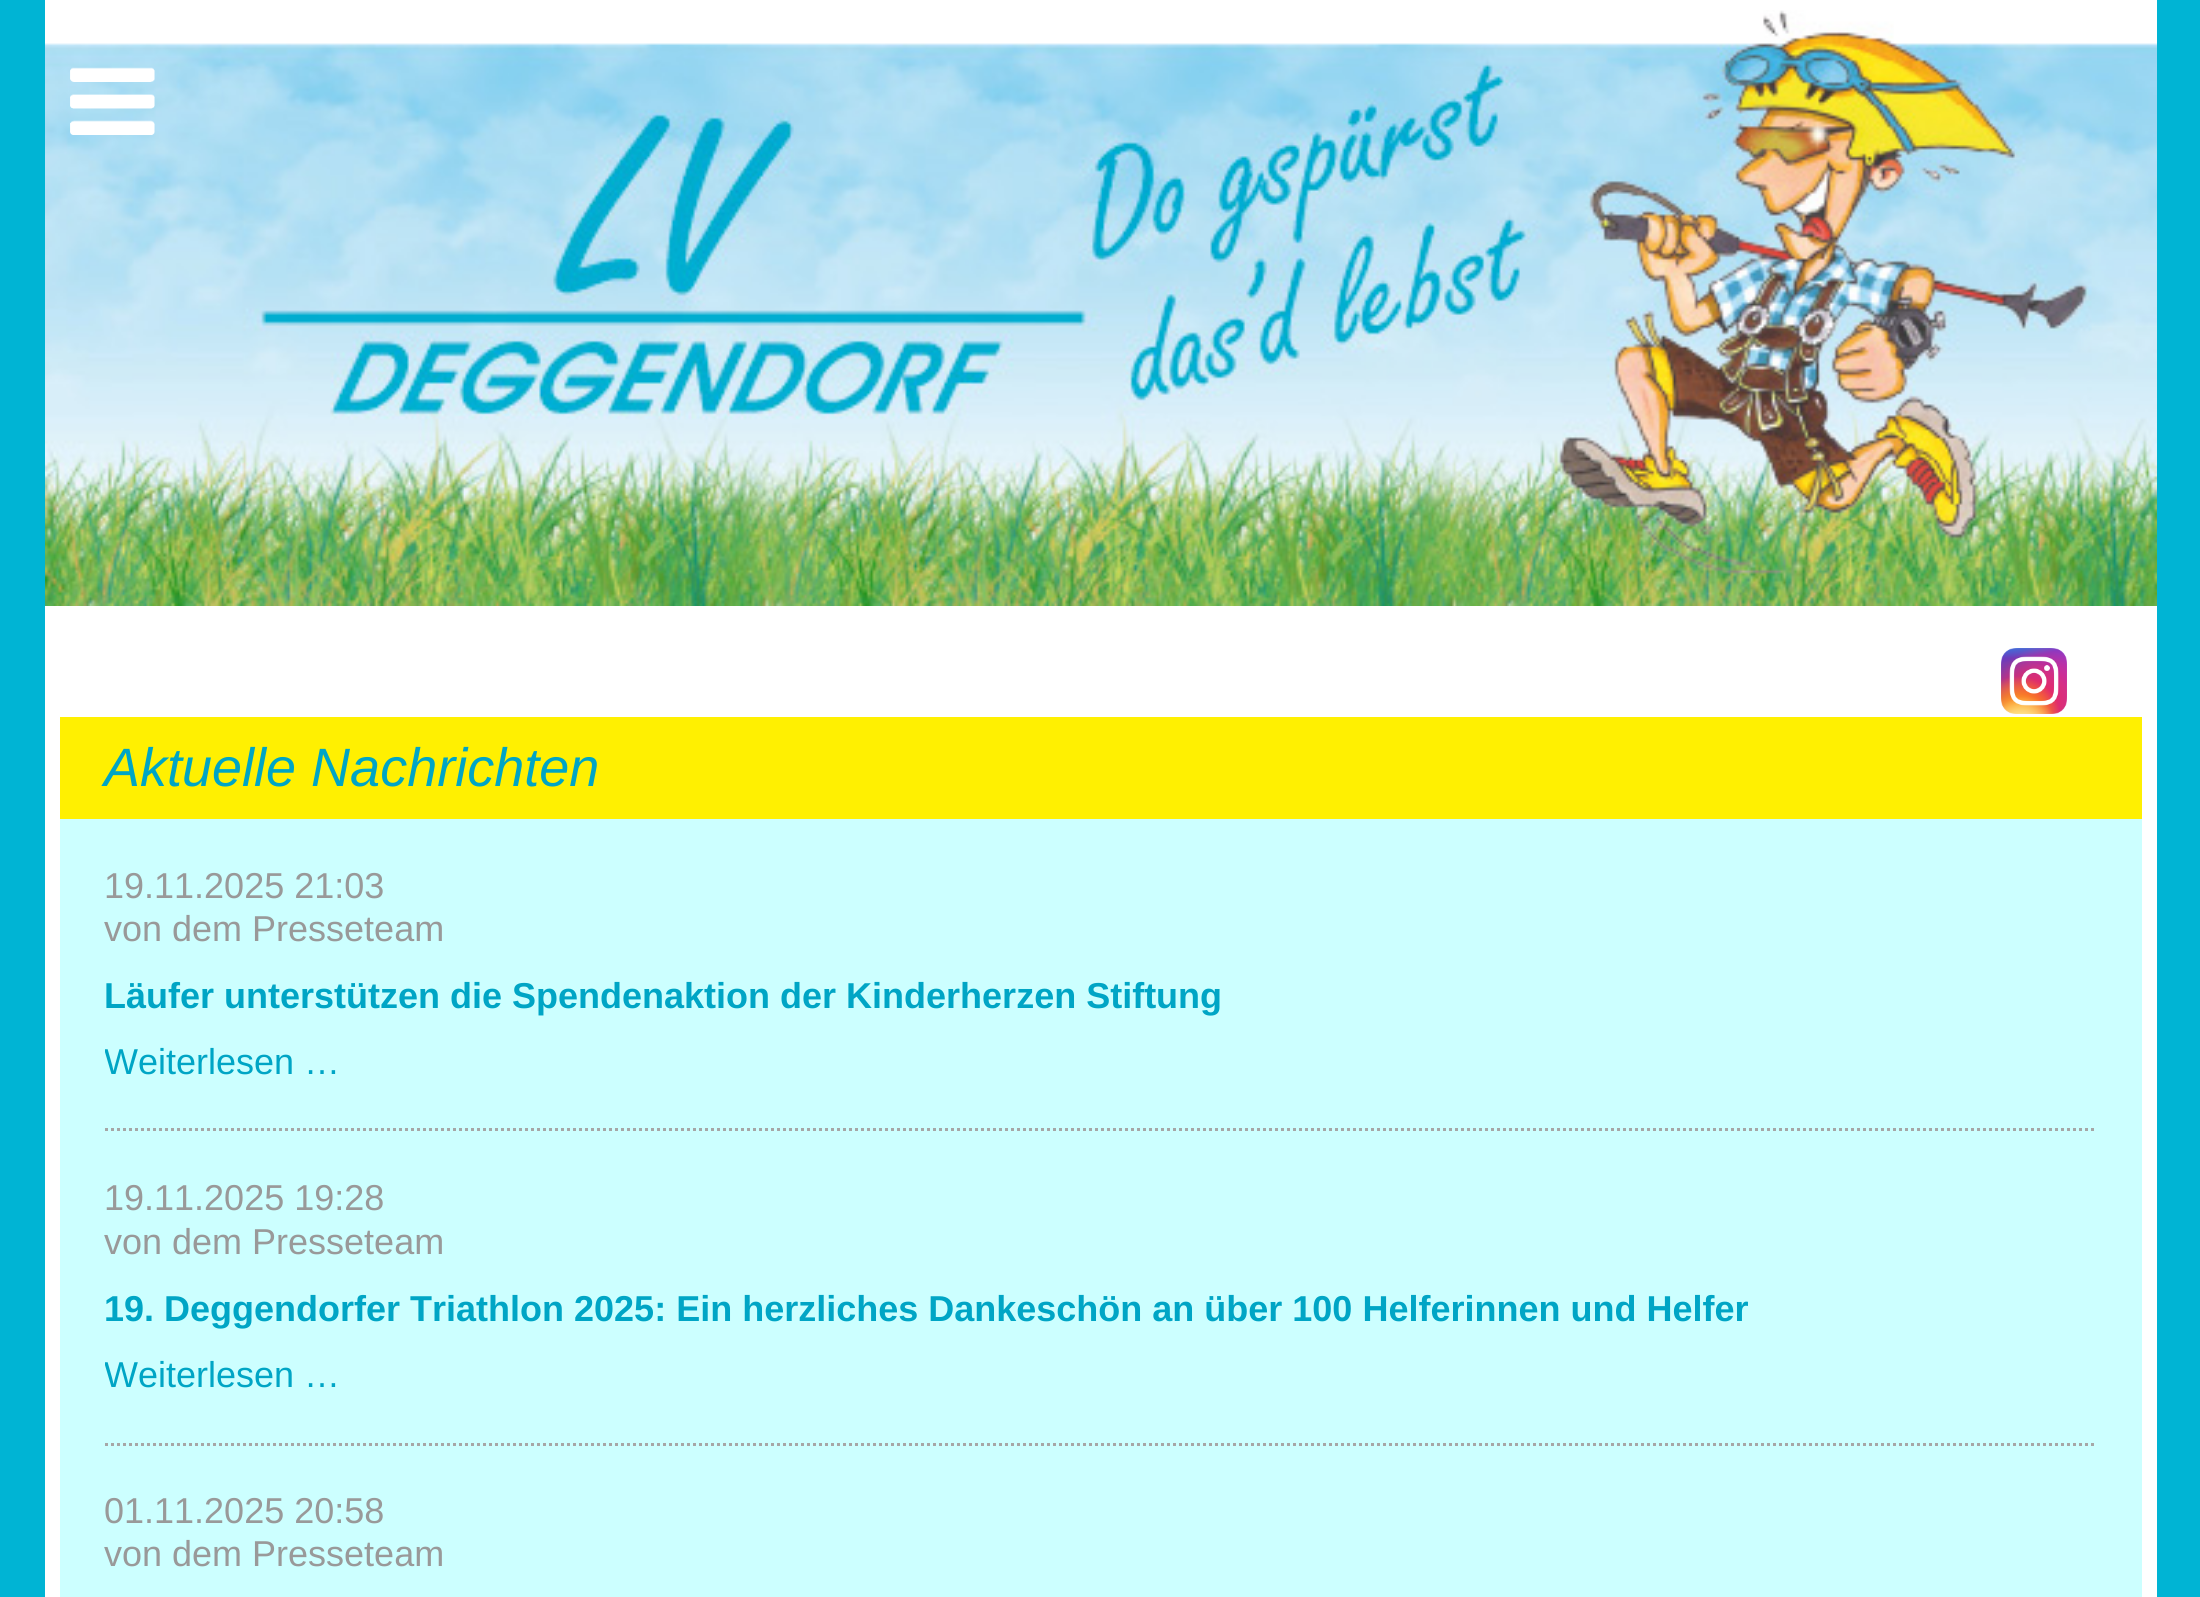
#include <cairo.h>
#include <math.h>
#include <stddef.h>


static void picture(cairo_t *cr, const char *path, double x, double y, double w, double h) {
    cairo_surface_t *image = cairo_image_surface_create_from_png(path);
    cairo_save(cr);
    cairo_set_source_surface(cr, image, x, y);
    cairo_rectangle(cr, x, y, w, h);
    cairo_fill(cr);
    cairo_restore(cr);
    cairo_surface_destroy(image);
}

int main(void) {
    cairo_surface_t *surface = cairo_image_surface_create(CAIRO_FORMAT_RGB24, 2200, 1597);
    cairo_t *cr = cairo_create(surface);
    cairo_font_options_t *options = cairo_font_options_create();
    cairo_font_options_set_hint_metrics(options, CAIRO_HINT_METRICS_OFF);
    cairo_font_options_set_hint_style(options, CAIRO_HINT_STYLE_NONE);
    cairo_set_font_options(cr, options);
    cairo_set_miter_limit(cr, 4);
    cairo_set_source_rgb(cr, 0, 0.706, 0.831);
    cairo_paint(cr);
    cairo_set_source_rgb(cr, 1, 1, 1);
    cairo_rectangle(cr, 45, 0, 2112, 1597);
    cairo_fill(cr);
    picture(cr, "img1.png", 45, 10, 2112, 596);
    picture(cr, "img2.png", 70, 67, 85, 68);
    picture(cr, "img3.png", 2001, 648, 66, 66);
    cairo_set_source_rgb(cr, 0.8, 1, 1);
    cairo_rectangle(cr, 60, 819, 2082, 778);
    cairo_fill(cr);
    cairo_set_source_rgb(cr, 1, 0.941, 0.004);
    cairo_rectangle(cr, 60, 717, 2082, 102);
    cairo_fill(cr);
    cairo_select_font_face(cr, "Liberation Sans", CAIRO_FONT_SLANT_ITALIC, CAIRO_FONT_WEIGHT_NORMAL);
    cairo_set_font_size(cr, 54);
    cairo_set_source_rgb(cr, 0, 0.647, 0.773);
    cairo_move_to(cr, 104, 786);
    cairo_show_text(cr, "Aktuelle Nachrichten");
    cairo_new_path(cr);
    cairo_move_to(cr, 105, 1129.5);
    cairo_line_to(cr, 2097, 1129.5);
    cairo_set_source_rgb(cr, 0.651, 0.651, 0.651);
    cairo_set_line_width(cr, 3);
    cairo_set_dash(cr, (double[]){3, 3}, 2, 0);
    cairo_stroke(cr);
    cairo_select_font_face(cr, "Liberation Sans", CAIRO_FONT_SLANT_NORMAL, CAIRO_FONT_WEIGHT_NORMAL);
    cairo_set_font_size(cr, 36);
    cairo_set_source_rgb(cr, 0.6, 0.6, 0.6);
    cairo_move_to(cr, 104, 898);
    cairo_show_text(cr, "19.11.2025 21:03");
    cairo_move_to(cr, 104, 941);
    cairo_show_text(cr, "von dem Presseteam");
    cairo_select_font_face(cr, "Liberation Sans", CAIRO_FONT_SLANT_NORMAL, CAIRO_FONT_WEIGHT_BOLD);
    cairo_set_source_rgb(cr, 0, 0.647, 0.773);
    cairo_move_to(cr, 104, 1008);
    cairo_show_text(cr, "Läufer unterstützen die Spendenaktion der Kinderherzen Stiftung");
    cairo_save(cr);
    cairo_rectangle(cr, 105, 819, 1992, 309);
    cairo_clip(cr);
    cairo_select_font_face(cr, "Liberation Sans", CAIRO_FONT_SLANT_NORMAL, CAIRO_FONT_WEIGHT_NORMAL);
    cairo_move_to(cr, 104, 1074);
    cairo_show_text(cr, "Weiterlesen …");
    cairo_restore(cr);
    cairo_new_path(cr);
    cairo_move_to(cr, 105, 1444.5);
    cairo_line_to(cr, 2097, 1444.5);
    cairo_set_source_rgb(cr, 0.651, 0.651, 0.651);
    cairo_stroke(cr);
    cairo_select_font_face(cr, "Liberation Sans", CAIRO_FONT_SLANT_NORMAL, CAIRO_FONT_WEIGHT_NORMAL);
    cairo_set_source_rgb(cr, 0.6, 0.6, 0.6);
    cairo_move_to(cr, 104, 1210);
    cairo_show_text(cr, "19.11.2025 19:28");
    cairo_move_to(cr, 104, 1254);
    cairo_show_text(cr, "von dem Presseteam");
    cairo_select_font_face(cr, "Liberation Sans", CAIRO_FONT_SLANT_NORMAL, CAIRO_FONT_WEIGHT_BOLD);
    cairo_set_source_rgb(cr, 0, 0.647, 0.773);
    cairo_move_to(cr, 104, 1321);
    cairo_show_text(cr, "19. Deggendorfer Triathlon 2025: Ein herzliches Dankeschön an über 100 Helferinnen und Helfer");
    cairo_save(cr);
    cairo_rectangle(cr, 105, 1131, 1992, 312);
    cairo_clip(cr);
    cairo_select_font_face(cr, "Liberation Sans", CAIRO_FONT_SLANT_NORMAL, CAIRO_FONT_WEIGHT_NORMAL);
    cairo_move_to(cr, 104, 1387);
    cairo_show_text(cr, "Weiterlesen …");
    cairo_restore(cr);
    cairo_select_font_face(cr, "Liberation Sans", CAIRO_FONT_SLANT_NORMAL, CAIRO_FONT_WEIGHT_NORMAL);
    cairo_set_source_rgb(cr, 0.6, 0.6, 0.6);
    cairo_move_to(cr, 104, 1523);
    cairo_show_text(cr, "01.11.2025 20:58");
    cairo_move_to(cr, 104, 1566);
    cairo_show_text(cr, "von dem Presseteam");
    cairo_surface_write_to_png(surface, "page.png");
    cairo_font_options_destroy(options);
    cairo_destroy(cr);
    cairo_surface_destroy(surface);
    return 0;
}
